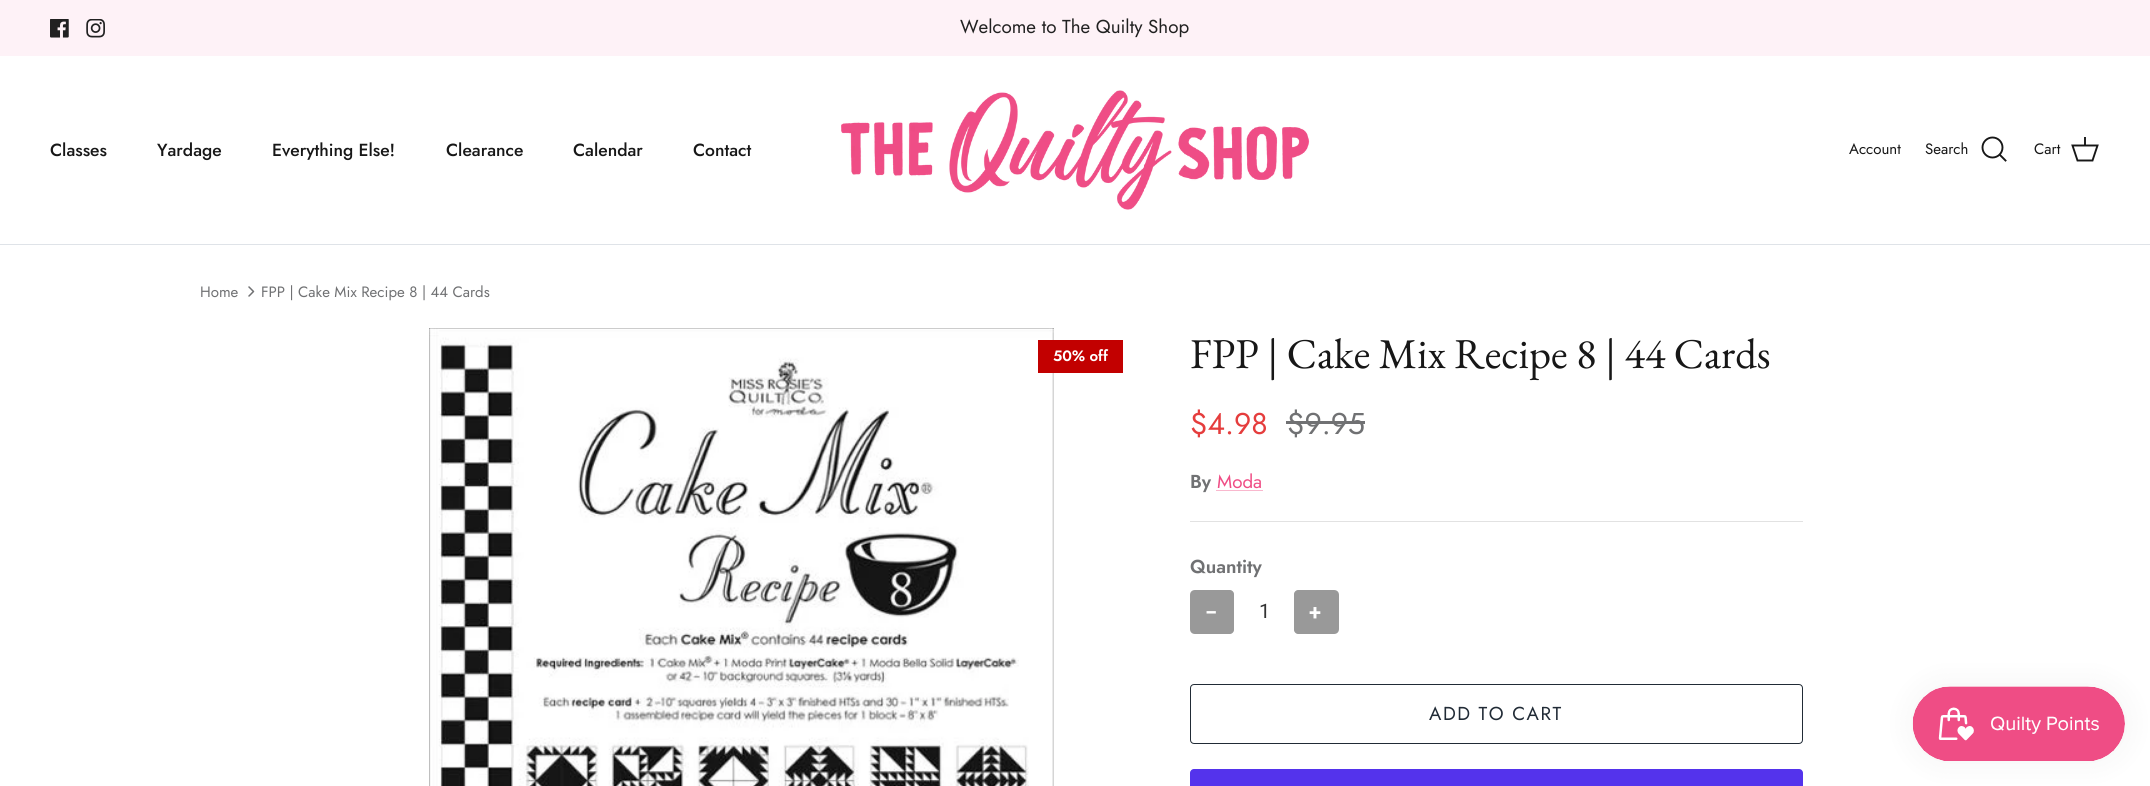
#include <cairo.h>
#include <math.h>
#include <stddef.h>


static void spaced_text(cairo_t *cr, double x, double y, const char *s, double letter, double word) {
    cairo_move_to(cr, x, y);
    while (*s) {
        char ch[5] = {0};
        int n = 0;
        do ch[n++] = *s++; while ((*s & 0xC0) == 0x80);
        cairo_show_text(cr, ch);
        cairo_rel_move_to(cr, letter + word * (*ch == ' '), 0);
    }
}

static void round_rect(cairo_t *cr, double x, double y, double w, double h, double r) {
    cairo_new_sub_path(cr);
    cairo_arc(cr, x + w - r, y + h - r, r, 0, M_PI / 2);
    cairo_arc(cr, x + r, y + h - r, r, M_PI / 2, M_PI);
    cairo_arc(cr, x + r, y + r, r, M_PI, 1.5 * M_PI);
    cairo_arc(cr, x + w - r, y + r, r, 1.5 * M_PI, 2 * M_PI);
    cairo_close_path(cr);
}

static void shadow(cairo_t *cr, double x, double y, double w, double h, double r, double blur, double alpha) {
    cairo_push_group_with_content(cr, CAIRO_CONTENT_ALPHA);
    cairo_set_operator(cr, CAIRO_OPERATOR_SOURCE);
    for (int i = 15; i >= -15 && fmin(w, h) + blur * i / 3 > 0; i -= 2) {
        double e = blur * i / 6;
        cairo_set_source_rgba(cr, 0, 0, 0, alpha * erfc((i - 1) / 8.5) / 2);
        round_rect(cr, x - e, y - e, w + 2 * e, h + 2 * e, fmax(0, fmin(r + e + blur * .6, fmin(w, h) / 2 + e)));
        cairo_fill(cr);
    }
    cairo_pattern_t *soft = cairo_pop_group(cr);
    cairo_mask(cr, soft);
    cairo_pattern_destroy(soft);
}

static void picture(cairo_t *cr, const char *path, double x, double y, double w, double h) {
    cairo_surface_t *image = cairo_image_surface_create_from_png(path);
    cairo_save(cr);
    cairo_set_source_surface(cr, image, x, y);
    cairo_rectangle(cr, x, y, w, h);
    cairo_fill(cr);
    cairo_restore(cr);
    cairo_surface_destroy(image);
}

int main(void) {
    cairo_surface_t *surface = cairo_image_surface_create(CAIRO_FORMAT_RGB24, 2150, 786);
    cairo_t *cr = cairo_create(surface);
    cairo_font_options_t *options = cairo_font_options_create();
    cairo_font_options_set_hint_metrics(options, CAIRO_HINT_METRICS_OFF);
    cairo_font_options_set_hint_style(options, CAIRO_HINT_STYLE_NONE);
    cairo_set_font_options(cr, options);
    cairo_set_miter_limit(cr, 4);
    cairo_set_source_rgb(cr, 1, 1, 1);
    cairo_paint(cr);
    cairo_set_source_rgb(cr, 0.996, 0.949, 0.965);
    cairo_rectangle(cr, 0, 0, 2150, 56);
    cairo_fill(cr);
    picture(cr, "img1.png", 50, 19, 19, 19);
    picture(cr, "img2.png", 86, 19, 19, 19);
    cairo_select_font_face(cr, "Jost", CAIRO_FONT_SLANT_NORMAL, CAIRO_FONT_WEIGHT_NORMAL);
    cairo_set_font_size(cr, 18.75);
    cairo_set_source_rgb(cr, 0.129, 0.129, 0.129);
    cairo_move_to(cr, 960, 33);
    cairo_show_text(cr, "Welcome to The Quilty Shop");
    cairo_set_source_rgb(cr, 0.875, 0.89, 0.91);
    cairo_rectangle(cr, 0, 244, 2150, 1);
    cairo_fill(cr);
    cairo_select_font_face(cr, "Jost Medium", CAIRO_FONT_SLANT_NORMAL, CAIRO_FONT_WEIGHT_NORMAL);
    cairo_set_font_size(cr, 17.5);
    cairo_set_source_rgb(cr, 0.09, 0.09, 0.09);
    cairo_move_to(cr, 50, 156);
    cairo_show_text(cr, "Classes");
    cairo_move_to(cr, 157, 156);
    cairo_show_text(cr, "Yardage");
    cairo_move_to(cr, 272, 156);
    cairo_show_text(cr, "Everything Else!");
    cairo_move_to(cr, 446, 156);
    cairo_show_text(cr, "Clearance");
    cairo_move_to(cr, 573, 156);
    cairo_show_text(cr, "Calendar");
    cairo_move_to(cr, 693, 156);
    cairo_show_text(cr, "Contact");
    picture(cr, "img3.png", 841, 90, 469, 120);
    cairo_select_font_face(cr, "Jost", CAIRO_FONT_SLANT_NORMAL, CAIRO_FONT_WEIGHT_NORMAL);
    cairo_set_font_size(cr, 15);
    cairo_move_to(cr, 1849, 154);
    cairo_show_text(cr, "Account");
    cairo_move_to(cr, 1925, 154);
    cairo_show_text(cr, "Search");
    cairo_new_path(cr);
    cairo_arc(cr, 1992.5, 147.5, 10, 0, 2 * M_PI);
    cairo_set_line_width(cr, 1.9);
    cairo_stroke(cr);
    cairo_new_path(cr);
    cairo_move_to(cr, 2000, 155);
    cairo_line_to(cr, 2005.5, 160.5);
    cairo_set_line_cap(cr, CAIRO_LINE_CAP_SQUARE);
    cairo_stroke(cr);
    cairo_move_to(cr, 2034, 154);
    cairo_show_text(cr, "Cart");
    cairo_new_path(cr);
    cairo_move_to(cr, 2072.5, 145.5);
    cairo_line_to(cr, 2097.5, 145.5);
    cairo_line_to(cr, 2092.5, 160.5);
    cairo_line_to(cr, 2077.5, 160.5);
    cairo_close_path(cr);
    cairo_set_line_cap(cr, CAIRO_LINE_CAP_BUTT);
    cairo_stroke(cr);
    cairo_set_source_rgba(cr, 0.09, 0.09, 0.09, 0.95);
    cairo_rectangle(cr, 2084, 137, 2, 9);
    cairo_fill(cr);
    cairo_set_source_rgb(cr, 0.439, 0.443, 0.451);
    cairo_move_to(cr, 200, 297);
    cairo_show_text(cr, "Home");
    cairo_new_path(cr);
    cairo_move_to(cr, 249, 296);
    cairo_line_to(cr, 253.5, 291.5);
    cairo_line_to(cr, 249, 287);
    cairo_set_line_width(cr, 1.5);
    cairo_set_line_cap(cr, CAIRO_LINE_CAP_ROUND);
    cairo_set_line_join(cr, CAIRO_LINE_JOIN_ROUND);
    cairo_stroke(cr);
    cairo_move_to(cr, 261, 297);
    cairo_show_text(cr, "FPP | Cake Mix Recipe 8 | 44 Cards");
    picture(cr, "img4.png", 429, 328, 625, 458);
    cairo_set_source_rgb(cr, 0.761, 0, 0);
    cairo_rectangle(cr, 1038, 340, 85, 33);
    cairo_fill(cr);
    cairo_select_font_face(cr, "Jost SemiBold", CAIRO_FONT_SLANT_NORMAL, CAIRO_FONT_WEIGHT_NORMAL);
    cairo_set_source_rgb(cr, 1, 1, 1);
    cairo_move_to(cr, 1053, 361);
    cairo_show_text(cr, "50% off");
    cairo_select_font_face(cr, "EB Garamond", CAIRO_FONT_SLANT_NORMAL, CAIRO_FONT_WEIGHT_NORMAL);
    cairo_set_font_size(cr, 42.5);
    cairo_set_source_rgb(cr, 0.09, 0.09, 0.09);
    cairo_move_to(cr, 1190, 368);
    cairo_show_text(cr, "FPP | Cake Mix Recipe 8 | 44 Cards");
    cairo_select_font_face(cr, "Jost", CAIRO_FONT_SLANT_NORMAL, CAIRO_FONT_WEIGHT_NORMAL);
    cairo_set_font_size(cr, 30);
    cairo_set_source_rgb(cr, 0.898, 0.239, 0.239);
    cairo_move_to(cr, 1190, 434);
    cairo_show_text(cr, "$4.98");
    cairo_set_source_rgb(cr, 0.439, 0.443, 0.451);
    cairo_move_to(cr, 1287, 434);
    cairo_show_text(cr, "$9.95");
    cairo_rectangle(cr, 1286, 421, 79, 3);
    cairo_fill(cr);
    cairo_select_font_face(cr, "Jost SemiBold", CAIRO_FONT_SLANT_NORMAL, CAIRO_FONT_WEIGHT_NORMAL);
    cairo_set_font_size(cr, 18.75);
    cairo_move_to(cr, 1190, 488);
    cairo_show_text(cr, "By");
    cairo_select_font_face(cr, "Jost", CAIRO_FONT_SLANT_NORMAL, CAIRO_FONT_WEIGHT_NORMAL);
    cairo_set_source_rgb(cr, 0.937, 0.302, 0.522);
    cairo_move_to(cr, 1217, 488);
    cairo_show_text(cr, "Moda");
    cairo_set_source_rgb(cr, 0.976, 0.722, 0.808);
    cairo_rectangle(cr, 1216, 490, 47, 1);
    cairo_fill(cr);
    cairo_set_source_rgb(cr, 0.886, 0.886, 0.886);
    cairo_rectangle(cr, 1190, 521, 613, 1);
    cairo_fill(cr);
    cairo_select_font_face(cr, "Jost SemiBold", CAIRO_FONT_SLANT_NORMAL, CAIRO_FONT_WEIGHT_NORMAL);
    cairo_set_source_rgb(cr, 0.439, 0.443, 0.451);
    cairo_move_to(cr, 1190, 573);
    cairo_show_text(cr, "Quantity");
    cairo_set_source_rgb(cr, 0.6, 0.6, 0.6);
    cairo_new_path(cr);
    cairo_move_to(cr, 1195, 590);
    cairo_line_to(cr, 1230, 590);
    cairo_curve_to(cr, 1232, 590, 1234, 592, 1234, 594);
    cairo_line_to(cr, 1234, 630);
    cairo_curve_to(cr, 1234, 632, 1232, 634, 1230, 634);
    cairo_line_to(cr, 1195, 634);
    cairo_curve_to(cr, 1192, 634, 1190, 632, 1190, 629);
    cairo_line_to(cr, 1190, 595);
    cairo_curve_to(cr, 1190, 592, 1192, 590, 1195, 590);
    cairo_close_path(cr);
    cairo_fill(cr);
    cairo_select_font_face(cr, "Roboto", CAIRO_FONT_SLANT_NORMAL, CAIRO_FONT_WEIGHT_BOLD);
    cairo_set_font_size(cr, 22);
    cairo_set_source_rgb(cr, 1, 1, 1);
    spaced_text(cr, 1205, 620, "−", 2, 0);
    cairo_select_font_face(cr, "Roboto", CAIRO_FONT_SLANT_NORMAL, CAIRO_FONT_WEIGHT_NORMAL);
    cairo_set_font_size(cr, 20);
    cairo_set_source_rgb(cr, 0.2, 0.2, 0.2);
    cairo_move_to(cr, 1259, 618);
    cairo_show_text(cr, "1");
    cairo_set_source_rgb(cr, 0.6, 0.6, 0.6);
    cairo_new_path(cr);
    cairo_move_to(cr, 1298, 590);
    cairo_line_to(cr, 1334, 590);
    cairo_curve_to(cr, 1337, 590, 1339, 592, 1339, 595);
    cairo_line_to(cr, 1339, 629);
    cairo_curve_to(cr, 1339, 632, 1337, 634, 1334, 634);
    cairo_line_to(cr, 1298, 634);
    cairo_curve_to(cr, 1296, 634, 1294, 632, 1294, 630);
    cairo_line_to(cr, 1294, 594);
    cairo_curve_to(cr, 1294, 592, 1296, 590, 1298, 590);
    cairo_close_path(cr);
    cairo_fill(cr);
    cairo_select_font_face(cr, "Roboto", CAIRO_FONT_SLANT_NORMAL, CAIRO_FONT_WEIGHT_BOLD);
    cairo_set_font_size(cr, 22);
    cairo_set_source_rgb(cr, 1, 1, 1);
    spaced_text(cr, 1309, 620, "+", 2, 0);
    round_rect(cr, 1190.5, 684.5, 612, 59, 3.5);
    cairo_set_source_rgb(cr, 0.129, 0.169, 0.212);
    cairo_set_line_width(cr, 1);
    cairo_set_line_cap(cr, CAIRO_LINE_CAP_BUTT);
    cairo_set_line_join(cr, CAIRO_LINE_JOIN_MITER);
    cairo_stroke(cr);
    cairo_select_font_face(cr, "Jost", CAIRO_FONT_SLANT_NORMAL, CAIRO_FONT_WEIGHT_NORMAL);
    cairo_set_font_size(cr, 18.75);
    spaced_text(cr, 1429, 720, "ADD TO CART", 1.5, 0);
    cairo_set_source_rgb(cr, 0.329, 0.2, 0.922);
    round_rect(cr, 1190, 769, 613, 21, 4);
    cairo_fill(cr);
    cairo_set_source_rgb(cr, 0, 0, 0);
    shadow(cr, 1913, 686, 212, 75, 37.5, 15.5, 0.05);
    picture(cr, "img5.png", 1912, 686, 213, 75);
    cairo_surface_write_to_png(surface, "page.png");
    cairo_font_options_destroy(options);
    cairo_destroy(cr);
    cairo_surface_destroy(surface);
    return 0;
}
